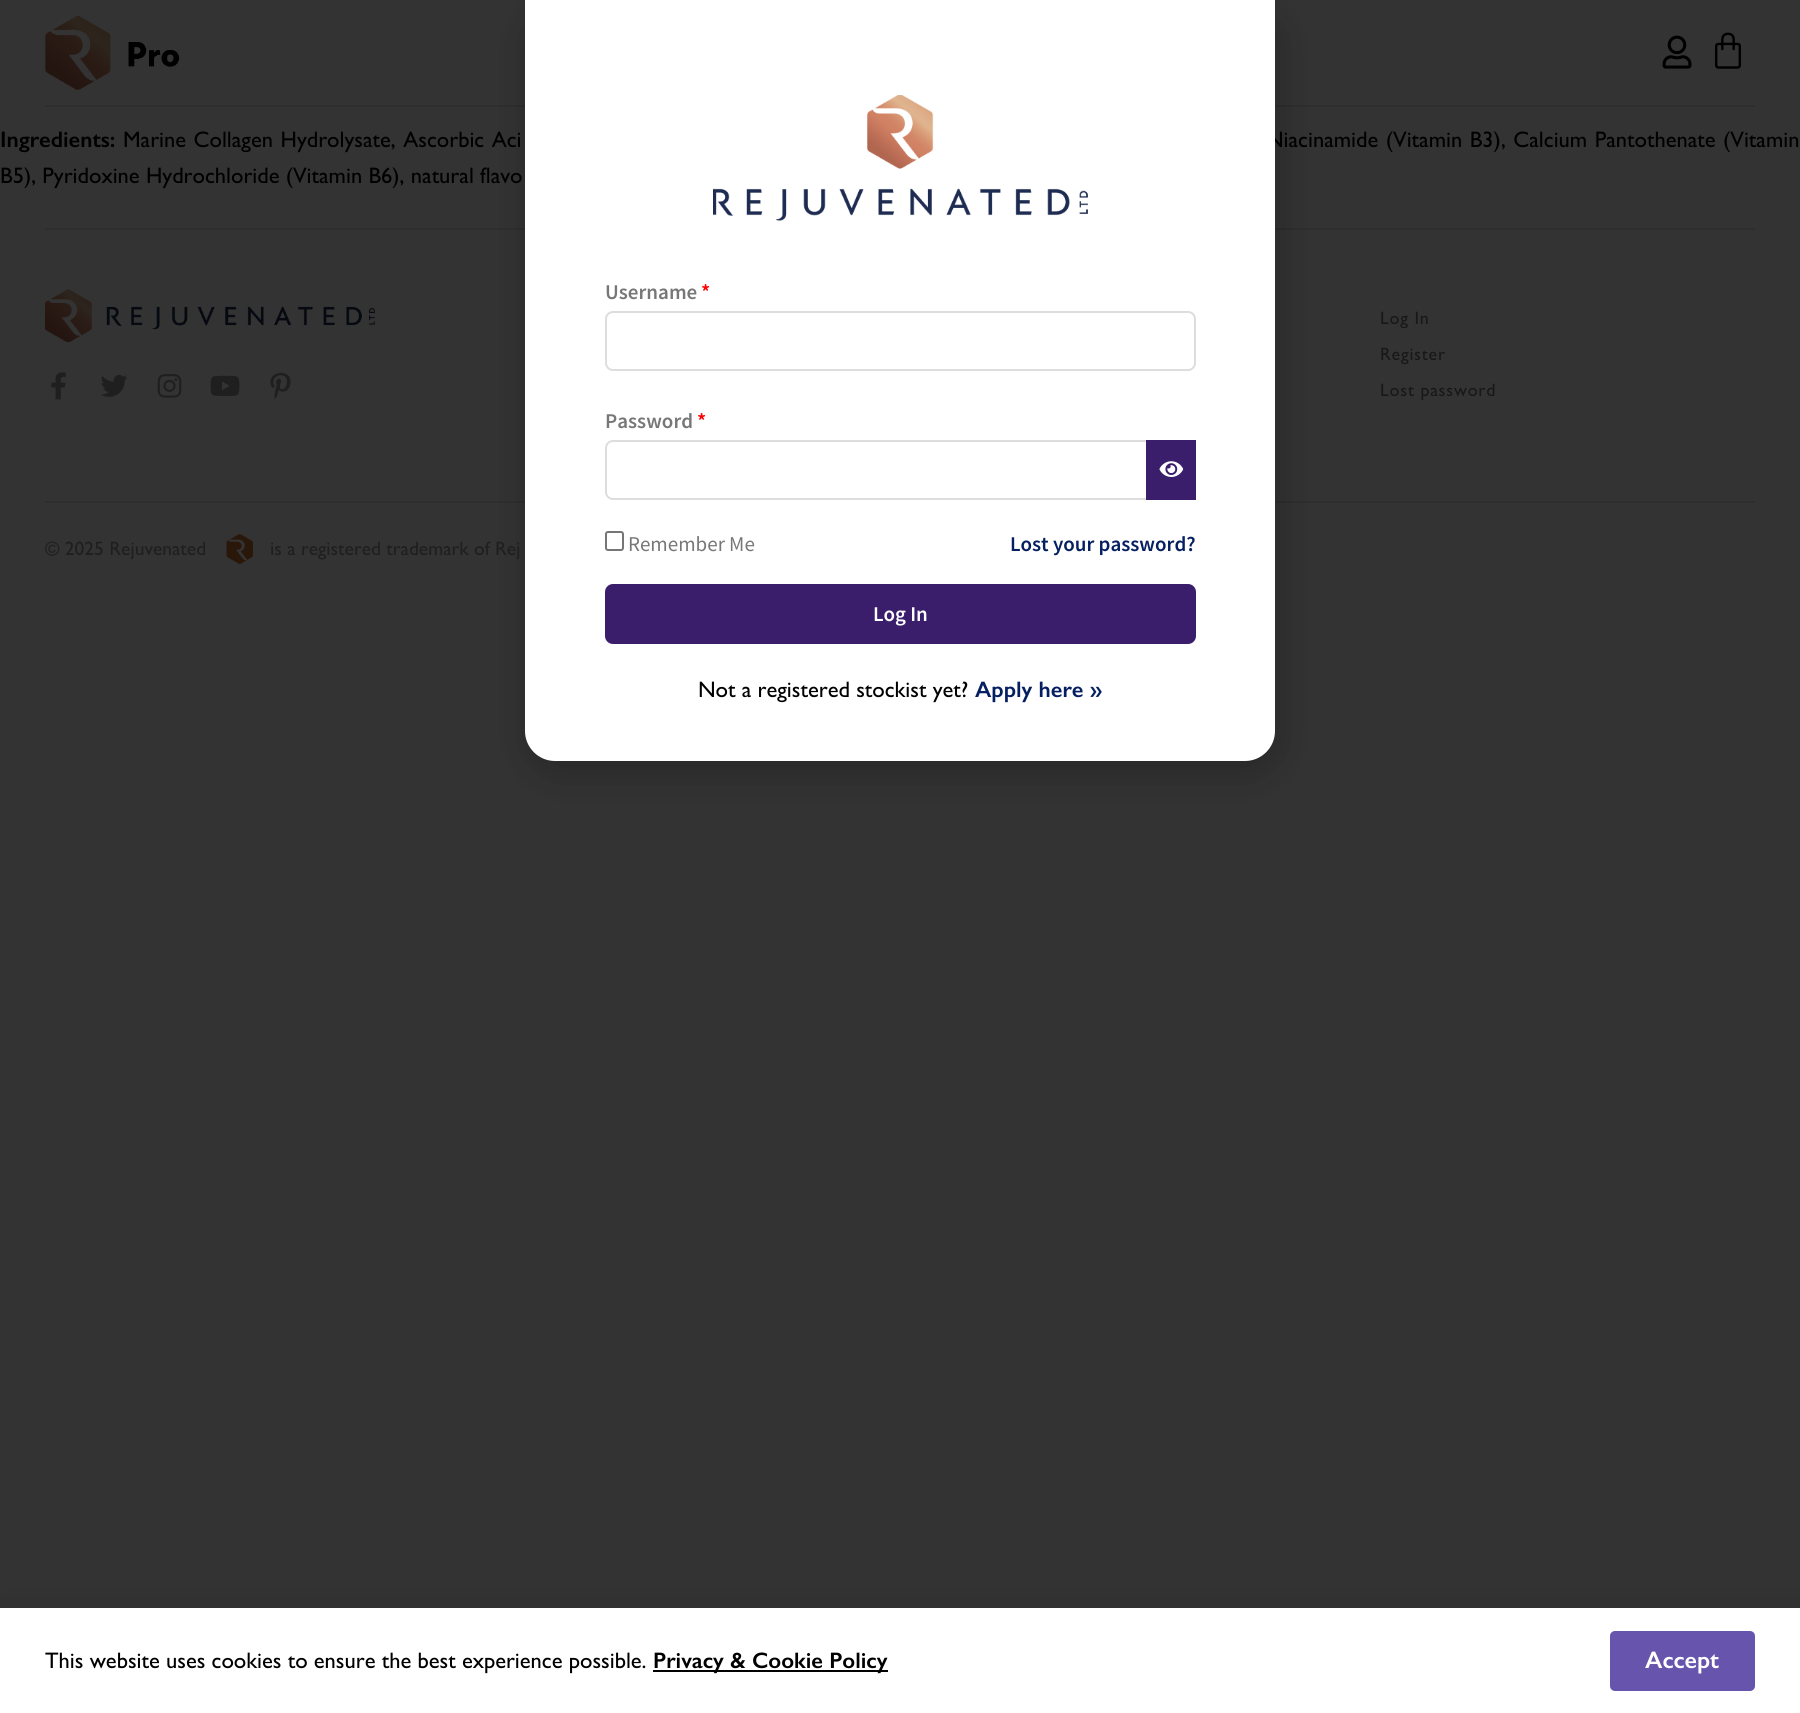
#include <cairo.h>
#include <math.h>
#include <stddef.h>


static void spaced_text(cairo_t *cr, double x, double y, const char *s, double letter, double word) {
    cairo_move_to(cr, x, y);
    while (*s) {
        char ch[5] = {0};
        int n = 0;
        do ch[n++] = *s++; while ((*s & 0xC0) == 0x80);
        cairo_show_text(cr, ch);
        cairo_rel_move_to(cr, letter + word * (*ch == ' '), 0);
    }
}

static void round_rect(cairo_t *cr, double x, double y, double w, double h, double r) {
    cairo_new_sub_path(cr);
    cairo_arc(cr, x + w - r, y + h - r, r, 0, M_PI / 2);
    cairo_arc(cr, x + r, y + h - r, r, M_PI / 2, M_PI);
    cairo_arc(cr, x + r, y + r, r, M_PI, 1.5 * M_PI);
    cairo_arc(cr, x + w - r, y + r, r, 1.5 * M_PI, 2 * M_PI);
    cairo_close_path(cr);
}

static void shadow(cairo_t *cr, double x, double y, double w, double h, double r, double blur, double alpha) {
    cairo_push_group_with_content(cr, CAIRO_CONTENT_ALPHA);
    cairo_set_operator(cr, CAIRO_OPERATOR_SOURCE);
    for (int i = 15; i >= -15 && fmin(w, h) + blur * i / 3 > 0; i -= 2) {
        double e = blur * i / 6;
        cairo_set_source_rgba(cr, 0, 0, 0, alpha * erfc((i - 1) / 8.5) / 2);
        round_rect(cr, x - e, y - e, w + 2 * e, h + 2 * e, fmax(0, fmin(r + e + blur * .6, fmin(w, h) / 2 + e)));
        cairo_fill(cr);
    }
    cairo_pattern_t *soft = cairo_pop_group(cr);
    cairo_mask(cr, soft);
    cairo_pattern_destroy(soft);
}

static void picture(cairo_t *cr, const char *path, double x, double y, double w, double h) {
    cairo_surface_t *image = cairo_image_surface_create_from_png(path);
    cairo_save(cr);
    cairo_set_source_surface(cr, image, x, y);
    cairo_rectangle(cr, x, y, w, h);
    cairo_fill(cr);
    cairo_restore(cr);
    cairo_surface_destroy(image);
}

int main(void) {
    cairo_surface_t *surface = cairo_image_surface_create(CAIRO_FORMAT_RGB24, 1800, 1713);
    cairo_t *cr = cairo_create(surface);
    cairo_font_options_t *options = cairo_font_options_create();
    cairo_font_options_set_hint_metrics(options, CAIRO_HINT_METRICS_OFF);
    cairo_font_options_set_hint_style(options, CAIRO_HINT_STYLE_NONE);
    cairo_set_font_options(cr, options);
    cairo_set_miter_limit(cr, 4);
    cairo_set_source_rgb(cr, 0.2, 0.2, 0.2);
    cairo_paint(cr);
    picture(cr, "img1.png", 45, 15, 135, 75);
    picture(cr, "img2.png", 1662, 35, 30, 34);
    picture(cr, "img3.png", 1715, 32, 26, 37);
    cairo_set_source_rgb(cr, 0.18, 0.18, 0.18);
    cairo_rectangle(cr, 45, 105, 1710, 2);
    cairo_fill(cr);
    cairo_select_font_face(cr, "Gill Sans SemiBold", CAIRO_FONT_SLANT_NORMAL, CAIRO_FONT_WEIGHT_NORMAL);
    cairo_set_font_size(cr, 22.5);
    cairo_set_source_rgb(cr, 0, 0, 0);
    cairo_move_to(cr, 0, 147);
    cairo_show_text(cr, "Ingredients:");
    cairo_select_font_face(cr, "Gill Sans", CAIRO_FONT_SLANT_NORMAL, CAIRO_FONT_WEIGHT_NORMAL);
    spaced_text(cr, 123, 147, "Marine Collagen Hydrolysate, Ascorbic Aci", 0, 1.25);
    spaced_text(cr, 1266, 147, "Niacinamide (Vitamin B3), Calcium Pantothenate (Vitamin", 0, 1.25);
    cairo_move_to(cr, 0, 183);
    cairo_show_text(cr, "B5), Pyridoxine Hydrochloride (Vitamin B6), natural flavo");
    cairo_set_source_rgb(cr, 0.18, 0.18, 0.18);
    cairo_rectangle(cr, 45, 228, 1710, 2);
    cairo_fill(cr);
    cairo_rectangle(cr, 45, 501, 1710, 2);
    cairo_fill(cr);
    cairo_set_source_rgb(cr, 0, 0, 0);
    shadow(cr, 524, 8, 759, 769, 35, 17, 0.2);
    cairo_set_source_rgb(cr, 1, 1, 1);
    cairo_new_path(cr);
    cairo_move_to(cr, 525, 0);
    cairo_line_to(cr, 1275, 0);
    cairo_line_to(cr, 1275, 731);
    cairo_curve_to(cr, 1275, 747.5, 1261.5, 761, 1245, 761);
    cairo_line_to(cr, 555, 761);
    cairo_curve_to(cr, 538.5, 761, 525, 747.5, 525, 731);
    cairo_close_path(cr);
    cairo_fill(cr);
    picture(cr, "img4.png", 713, 95, 375, 126);
    cairo_select_font_face(cr, "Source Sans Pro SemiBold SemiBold", CAIRO_FONT_SLANT_NORMAL, CAIRO_FONT_WEIGHT_NORMAL);
    cairo_set_font_size(cr, 21);
    cairo_set_source_rgb(cr, 0.467, 0.467, 0.467);
    cairo_move_to(cr, 605, 299);
    cairo_show_text(cr, "Username");
    cairo_set_source_rgb(cr, 1, 0, 0);
    cairo_move_to(cr, 701, 299);
    cairo_show_text(cr, "*");
    round_rect(cr, 606, 312, 589, 58, 7);
    cairo_set_source_rgb(cr, 0.867, 0.867, 0.867);
    cairo_stroke(cr);
    cairo_set_source_rgb(cr, 0.467, 0.467, 0.467);
    cairo_move_to(cr, 605, 428);
    cairo_show_text(cr, "Password");
    cairo_set_source_rgb(cr, 1, 0, 0);
    cairo_move_to(cr, 697, 428);
    cairo_show_text(cr, "*");
    round_rect(cr, 606, 441, 589, 58, 7);
    cairo_set_source_rgb(cr, 0.867, 0.867, 0.867);
    cairo_stroke(cr);
    cairo_set_source_rgb(cr, 0.227, 0.118, 0.424);
    cairo_rectangle(cr, 1146, 440, 50, 60);
    cairo_fill(cr);
    picture(cr, "img5.png", 1159, 461, 25, 16);
    round_rect(cr, 606, 532, 17, 18, 2);
    cairo_set_source_rgb(cr, 0.463, 0.463, 0.463);
    cairo_stroke(cr);
    cairo_select_font_face(cr, "Source Sans Pro", CAIRO_FONT_SLANT_NORMAL, CAIRO_FONT_WEIGHT_NORMAL);
    cairo_set_source_rgb(cr, 0.467, 0.467, 0.467);
    cairo_move_to(cr, 628, 551);
    cairo_show_text(cr, "Remember Me");
    cairo_select_font_face(cr, "Source Sans Pro SemiBold SemiBold", CAIRO_FONT_SLANT_NORMAL, CAIRO_FONT_WEIGHT_NORMAL);
    cairo_set_source_rgb(cr, 0.02, 0.122, 0.376);
    cairo_move_to(cr, 1010, 551);
    cairo_show_text(cr, "Lost your password?");
    cairo_set_source_rgb(cr, 0.227, 0.118, 0.424);
    round_rect(cr, 605, 584, 591, 60, 8);
    cairo_fill(cr);
    cairo_set_source_rgb(cr, 1, 1, 1);
    cairo_move_to(cr, 873, 621);
    cairo_show_text(cr, "Log In");
    cairo_select_font_face(cr, "Gill Sans", CAIRO_FONT_SLANT_NORMAL, CAIRO_FONT_WEIGHT_NORMAL);
    cairo_set_font_size(cr, 22.5);
    cairo_set_source_rgb(cr, 0, 0, 0);
    cairo_move_to(cr, 698, 697);
    cairo_show_text(cr, "Not a registered stockist yet?");
    cairo_select_font_face(cr, "Gill Sans SemiBold", CAIRO_FONT_SLANT_NORMAL, CAIRO_FONT_WEIGHT_NORMAL);
    cairo_set_source_rgb(cr, 0.02, 0.122, 0.376);
    cairo_move_to(cr, 975, 697);
    cairo_show_text(cr, "Apply here »");
    picture(cr, "img6.png", 45, 289, 330, 53);
    picture(cr, "img7.png", 51, 372, 15, 28);
    picture(cr, "img8.png", 100, 374, 28, 23);
    picture(cr, "img9.png", 157, 374, 25, 24);
    picture(cr, "img10.png", 210, 375, 30, 21);
    picture(cr, "img11.png", 270, 372, 21, 27);
    cairo_select_font_face(cr, "Gill Sans", CAIRO_FONT_SLANT_NORMAL, CAIRO_FONT_WEIGHT_NORMAL);
    cairo_set_font_size(cr, 18);
    cairo_set_source_rgb(cr, 0.094, 0.094, 0.094);
    spaced_text(cr, 1380, 324, "Log In", 0.75, 0);
    spaced_text(cr, 1380, 360, "Register", 0.75, 0);
    spaced_text(cr, 1380, 396, "Lost password", 0.75, 0);
    cairo_set_font_size(cr, 19.5);
    cairo_set_source_rgb(cr, 0.122, 0.122, 0.122);
    cairo_move_to(cr, 45, 555);
    cairo_show_text(cr, "© 2025 Rejuvenated");
    picture(cr, "img12.png", 226, 534, 27, 30);
    cairo_move_to(cr, 270, 555);
    cairo_show_text(cr, "is a registered trademark of Rej");
    cairo_set_source_rgb(cr, 0, 0, 0);
    shadow(cr, -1, 1616, 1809, 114, 0, 17, 0.2);
    cairo_set_source_rgb(cr, 1, 1, 1);
    cairo_rectangle(cr, 0, 1608, 1800, 105);
    cairo_fill(cr);
    cairo_set_font_size(cr, 22.5);
    cairo_set_source_rgb(cr, 0, 0, 0);
    cairo_move_to(cr, 45, 1668);
    cairo_show_text(cr, "This website uses cookies to ensure the best experience possible.");
    cairo_rectangle(cr, 653, 1670, 235, 2);
    cairo_fill(cr);
    cairo_select_font_face(cr, "Gill Sans SemiBold", CAIRO_FONT_SLANT_NORMAL, CAIRO_FONT_WEIGHT_NORMAL);
    cairo_move_to(cr, 653, 1668);
    cairo_show_text(cr, "Privacy & Cookie Policy");
    cairo_set_source_rgb(cr, 0.404, 0.329, 0.678);
    round_rect(cr, 1610, 1631, 145, 60, 5);
    cairo_fill(cr);
    cairo_set_font_size(cr, 24);
    cairo_set_source_rgb(cr, 1, 1, 1);
    cairo_move_to(cr, 1645, 1668);
    cairo_show_text(cr, "Accept");
    cairo_surface_write_to_png(surface, "page.png");
    cairo_font_options_destroy(options);
    cairo_destroy(cr);
    cairo_surface_destroy(surface);
    return 0;
}
